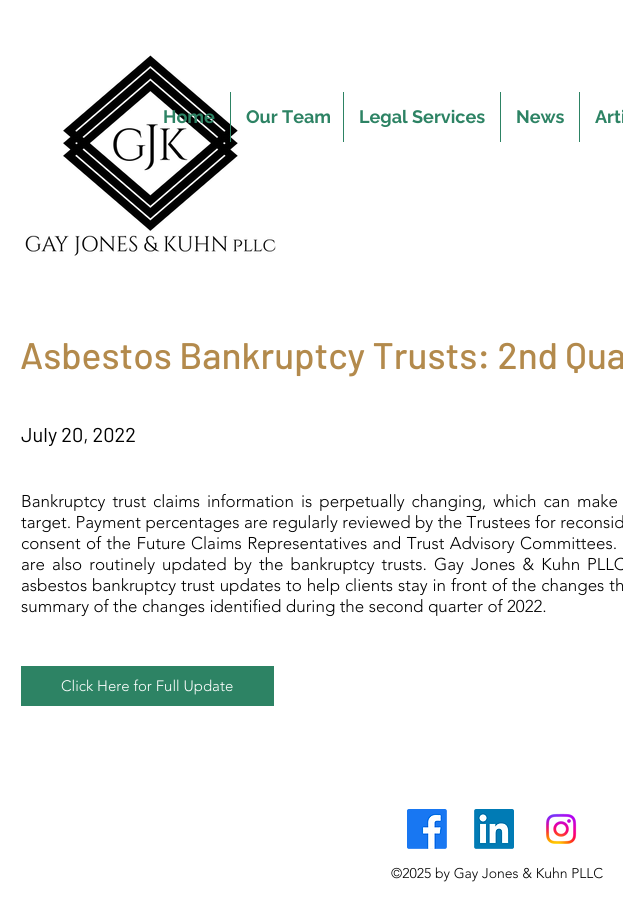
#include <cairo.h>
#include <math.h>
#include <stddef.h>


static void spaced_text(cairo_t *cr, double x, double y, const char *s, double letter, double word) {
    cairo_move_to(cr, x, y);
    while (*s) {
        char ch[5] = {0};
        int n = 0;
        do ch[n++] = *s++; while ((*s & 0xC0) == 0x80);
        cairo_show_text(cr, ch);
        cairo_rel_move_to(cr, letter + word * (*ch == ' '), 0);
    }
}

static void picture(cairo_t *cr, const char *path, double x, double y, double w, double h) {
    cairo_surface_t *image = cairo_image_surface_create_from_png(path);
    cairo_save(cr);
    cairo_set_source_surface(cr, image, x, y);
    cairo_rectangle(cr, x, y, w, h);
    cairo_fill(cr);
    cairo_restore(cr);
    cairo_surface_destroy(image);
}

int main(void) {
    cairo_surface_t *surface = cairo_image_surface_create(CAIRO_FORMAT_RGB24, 623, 919);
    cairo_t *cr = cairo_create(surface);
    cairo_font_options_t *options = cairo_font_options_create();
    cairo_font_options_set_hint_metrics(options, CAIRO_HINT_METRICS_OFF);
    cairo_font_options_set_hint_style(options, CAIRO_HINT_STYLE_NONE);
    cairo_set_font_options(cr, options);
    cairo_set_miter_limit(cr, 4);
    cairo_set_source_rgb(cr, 1, 1, 1);
    cairo_paint(cr);
    picture(cr, "img1.png", 25, 55, 251, 201);
    cairo_select_font_face(cr, "Raleway", CAIRO_FONT_SLANT_NORMAL, CAIRO_FONT_WEIGHT_BOLD);
    cairo_set_font_size(cr, 18);
    cairo_set_source_rgb(cr, 0.176, 0.514, 0.392);
    cairo_move_to(cr, 163, 123);
    cairo_show_text(cr, "Home");
    cairo_rectangle(cr, 230, 92, 1, 50);
    cairo_fill(cr);
    cairo_move_to(cr, 246, 123);
    cairo_show_text(cr, "Our Team");
    cairo_rectangle(cr, 343, 92, 1, 50);
    cairo_fill(cr);
    cairo_move_to(cr, 359, 123);
    cairo_show_text(cr, "Legal Services");
    cairo_rectangle(cr, 500, 92, 1, 50);
    cairo_fill(cr);
    cairo_move_to(cr, 516, 123);
    cairo_show_text(cr, "News");
    cairo_rectangle(cr, 579, 92, 1, 50);
    cairo_fill(cr);
    cairo_move_to(cr, 595, 123);
    cairo_show_text(cr, "Arti");
    cairo_select_font_face(cr, "Barlow Medium", CAIRO_FONT_SLANT_NORMAL, CAIRO_FONT_WEIGHT_NORMAL);
    cairo_set_font_size(cr, 37);
    cairo_set_source_rgb(cr, 0.702, 0.541, 0.298);
    cairo_move_to(cr, 20, 369);
    cairo_show_text(cr, "Asbestos Bankruptcy Trusts: 2nd Qua");
    cairo_select_font_face(cr, "Barlow", CAIRO_FONT_SLANT_NORMAL, CAIRO_FONT_WEIGHT_NORMAL);
    cairo_set_font_size(cr, 20);
    cairo_set_source_rgb(cr, 0, 0, 0);
    cairo_move_to(cr, 21, 442);
    cairo_show_text(cr, "July 20, 2022");
    cairo_select_font_face(cr, "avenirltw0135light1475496 Light", CAIRO_FONT_SLANT_NORMAL, CAIRO_FONT_WEIGHT_NORMAL);
    cairo_set_font_size(cr, 17);
    spaced_text(cr, 21, 507, "Bankruptcy trust claims information is perpetually changing, which can make", 0, 2.6);
    cairo_move_to(cr, 21, 528);
    cairo_show_text(cr, "target. Payment percentages are regularly reviewed by the Trustees for reconsid");
    spaced_text(cr, 21, 549, "consent of the Future Claims Representatives and Trust Advisory Committees.", 0, 1);
    spaced_text(cr, 21, 570, "are also routinely updated by the bankruptcy trusts. Gay Jones & Kuhn PLLC", 0, 2.6);
    spaced_text(cr, 21, 591, "asbestos bankruptcy trust updates to help clients stay in front of the changes th", 0, 0.5);
    cairo_move_to(cr, 21, 612);
    cairo_show_text(cr, "summary of the changes identified during the second quarter of 2022.");
    cairo_set_source_rgb(cr, 0.176, 0.514, 0.392);
    cairo_rectangle(cr, 21, 666, 253, 40);
    cairo_fill(cr);
    cairo_set_font_size(cr, 15);
    cairo_set_source_rgb(cr, 1, 1, 1);
    cairo_move_to(cr, 61, 691);
    cairo_show_text(cr, "Click Here for Full Update");
    picture(cr, "img2.png", 407, 809, 40, 40);
    picture(cr, "img3.png", 474, 809, 40, 40);
    picture(cr, "img4.png", 546, 813, 31, 31);
    cairo_set_font_size(cr, 14);
    cairo_set_source_rgb(cr, 0, 0, 0);
    cairo_move_to(cr, 391, 878);
    cairo_show_text(cr, "©2025 by Gay Jones & Kuhn PLLC");
    cairo_surface_write_to_png(surface, "page.png");
    cairo_font_options_destroy(options);
    cairo_destroy(cr);
    cairo_surface_destroy(surface);
    return 0;
}
